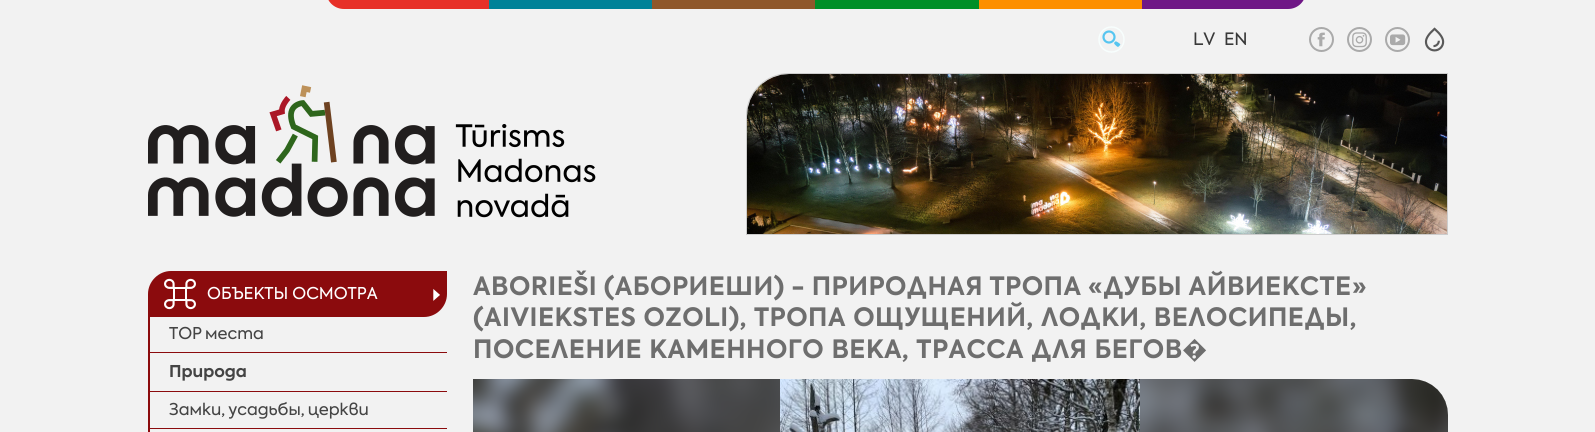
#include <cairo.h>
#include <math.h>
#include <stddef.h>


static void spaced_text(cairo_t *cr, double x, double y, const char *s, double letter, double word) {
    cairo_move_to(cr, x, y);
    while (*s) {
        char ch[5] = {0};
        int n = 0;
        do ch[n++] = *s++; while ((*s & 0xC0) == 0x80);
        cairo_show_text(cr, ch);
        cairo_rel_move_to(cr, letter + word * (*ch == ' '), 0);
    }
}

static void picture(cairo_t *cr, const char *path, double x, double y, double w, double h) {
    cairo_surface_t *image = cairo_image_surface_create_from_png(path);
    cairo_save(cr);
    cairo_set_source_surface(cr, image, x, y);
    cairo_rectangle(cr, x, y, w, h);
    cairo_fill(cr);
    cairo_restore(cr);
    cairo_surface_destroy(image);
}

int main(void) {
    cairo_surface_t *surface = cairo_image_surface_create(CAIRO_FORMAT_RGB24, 1595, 432);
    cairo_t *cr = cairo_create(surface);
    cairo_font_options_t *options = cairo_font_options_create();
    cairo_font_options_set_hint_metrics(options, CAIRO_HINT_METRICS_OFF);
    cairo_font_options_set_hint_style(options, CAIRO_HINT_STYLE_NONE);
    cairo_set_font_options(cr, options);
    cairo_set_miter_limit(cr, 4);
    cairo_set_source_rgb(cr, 0.949, 0.949, 0.949);
    cairo_paint(cr);
    cairo_save(cr);
    cairo_new_path(cr);
    cairo_move_to(cr, 326, -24);
    cairo_line_to(cr, 1306, -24);
    cairo_line_to(cr, 1306, -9);
    cairo_curve_to(cr, 1306, 1, 1298, 9, 1288, 9);
    cairo_line_to(cr, 344, 9);
    cairo_curve_to(cr, 334, 9, 326, 1, 326, -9);
    cairo_close_path(cr);
    cairo_clip(cr);
    cairo_set_source_rgb(cr, 0.906, 0.188, 0.157);
    cairo_rectangle(cr, 328, 0, 161, 9);
    cairo_fill(cr);
    cairo_restore(cr);
    cairo_set_source_rgb(cr, 0, 0.51, 0.596);
    cairo_rectangle(cr, 489, 0, 163, 9);
    cairo_fill(cr);
    cairo_set_source_rgb(cr, 0.561, 0.345, 0.169);
    cairo_rectangle(cr, 652, 0, 163, 9);
    cairo_fill(cr);
    cairo_set_source_rgb(cr, 0, 0.561, 0.153);
    cairo_rectangle(cr, 815, 0, 164, 9);
    cairo_fill(cr);
    cairo_set_source_rgb(cr, 0.992, 0.561, 0);
    cairo_rectangle(cr, 979, 0, 163, 9);
    cairo_fill(cr);
    cairo_save(cr);
    cairo_new_path(cr);
    cairo_move_to(cr, 326, -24);
    cairo_line_to(cr, 1306, -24);
    cairo_line_to(cr, 1306, -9);
    cairo_curve_to(cr, 1306, 1, 1298, 9, 1288, 9);
    cairo_line_to(cr, 344, 9);
    cairo_curve_to(cr, 334, 9, 326, 1, 326, -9);
    cairo_close_path(cr);
    cairo_clip(cr);
    cairo_set_source_rgb(cr, 0.435, 0.09, 0.525);
    cairo_rectangle(cr, 1142, 0, 162, 9);
    cairo_fill(cr);
    cairo_restore(cr);
    picture(cr, "img1.png", 1098, 26, 27, 27);
    cairo_select_font_face(cr, "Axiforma", CAIRO_FONT_SLANT_NORMAL, CAIRO_FONT_WEIGHT_NORMAL);
    cairo_set_font_size(cr, 17);
    cairo_set_source_rgb(cr, 0.224, 0.224, 0.224);
    cairo_move_to(cr, 1193, 45);
    cairo_show_text(cr, "LV");
    cairo_move_to(cr, 1224, 45);
    cairo_show_text(cr, "EN");
    picture(cr, "img2.png", 1309, 27, 25, 25);
    picture(cr, "img3.png", 1347, 27, 25, 25);
    picture(cr, "img4.png", 1385, 27, 25, 25);
    picture(cr, "img5.png", 1424, 27, 21, 25);
    picture(cr, "img6.png", 148, 85, 448, 133);
    cairo_new_path(cr);
    cairo_move_to(cr, 789, 73.5);
    cairo_line_to(cr, 1447.5, 73.5);
    cairo_line_to(cr, 1447.5, 234.5);
    cairo_line_to(cr, 746.5, 234.5);
    cairo_line_to(cr, 746.5, 116);
    cairo_curve_to(cr, 746.5, 92.5, 765.5, 73.5, 789, 73.5);
    cairo_close_path(cr);
    cairo_set_source_rgb(cr, 0.8, 0.8, 0.8);
    cairo_set_line_width(cr, 1);
    cairo_stroke(cr);
    cairo_set_source_rgb(cr, 1, 1, 1);
    cairo_new_path(cr);
    cairo_move_to(cr, 789, 74);
    cairo_line_to(cr, 1447, 74);
    cairo_line_to(cr, 1447, 234);
    cairo_line_to(cr, 747, 234);
    cairo_line_to(cr, 747, 116);
    cairo_curve_to(cr, 747, 93, 766, 74, 789, 74);
    cairo_close_path(cr);
    cairo_fill(cr);
    picture(cr, "img7.png", 747, 74, 700, 160);
    cairo_set_source_rgb(cr, 0.545, 0.043, 0.051);
    cairo_rectangle(cr, 148, 315, 2, 117);
    cairo_fill(cr);
    cairo_new_path(cr);
    cairo_move_to(cr, 171, 271);
    cairo_line_to(cr, 447, 271);
    cairo_line_to(cr, 447, 294);
    cairo_curve_to(cr, 447, 306.5, 436.5, 317, 424, 317);
    cairo_line_to(cr, 148, 317);
    cairo_line_to(cr, 148, 294);
    cairo_curve_to(cr, 148, 281.5, 158.5, 271, 171, 271);
    cairo_close_path(cr);
    cairo_fill(cr);
    picture(cr, "img8.png", 433, 289, 7, 12);
    picture(cr, "img9.png", 164, 278, 32, 32);
    cairo_set_font_size(cr, 16.25);
    cairo_set_source_rgb(cr, 1, 1, 1);
    cairo_move_to(cr, 207, 299);
    cairo_show_text(cr, "ОБЪЕКТЫ ОСМОТРА");
    cairo_set_source_rgb(cr, 0.545, 0.043, 0.051);
    cairo_rectangle(cr, 150, 352, 297, 1);
    cairo_fill(cr);
    cairo_set_source_rgb(cr, 0.267, 0.267, 0.267);
    spaced_text(cr, 169, 339, "TOP места", 0, -1);
    cairo_set_source_rgb(cr, 0.545, 0.043, 0.051);
    cairo_rectangle(cr, 150, 391, 297, 1);
    cairo_fill(cr);
    cairo_select_font_face(cr, "Axiforma", CAIRO_FONT_SLANT_NORMAL, CAIRO_FONT_WEIGHT_BOLD);
    cairo_set_source_rgb(cr, 0.267, 0.267, 0.267);
    cairo_move_to(cr, 169, 377);
    cairo_show_text(cr, "Природa");
    cairo_set_source_rgb(cr, 0.545, 0.043, 0.051);
    cairo_rectangle(cr, 150, 428, 297, 1);
    cairo_fill(cr);
    cairo_select_font_face(cr, "Axiforma", CAIRO_FONT_SLANT_NORMAL, CAIRO_FONT_WEIGHT_NORMAL);
    cairo_set_source_rgb(cr, 0.267, 0.267, 0.267);
    spaced_text(cr, 169, 415, "Замки, усадьбы, церкви", 0, -1);
    cairo_select_font_face(cr, "Axiforma", CAIRO_FONT_SLANT_NORMAL, CAIRO_FONT_WEIGHT_BOLD);
    cairo_set_font_size(cr, 25.2);
    cairo_set_source_rgb(cr, 0.431, 0.431, 0.431);
    spaced_text(cr, 473, 295, "ABORIEŠI (АБОРИЕШИ) - ПРИРОДНАЯ ТРОПА «ДУБЫ АЙВИЕКСТЕ»", 0.5, -0.25);
    spaced_text(cr, 473, 326, "(AIVIEKSTES OZOLI), ТРОПА ОЩУЩЕНИЙ, ЛОДКИ, ВЕЛОСИПЕДЫ,", 0.5, 0.5);
    spaced_text(cr, 473, 358, "ПОСЕЛЕНИЕ КАМЕННОГО ВЕКА, ТРАССА ДЛЯ БЕГОВ", 0.5, 0.5);
    cairo_select_font_face(cr, "Noto Sans", CAIRO_FONT_SLANT_NORMAL, CAIRO_FONT_WEIGHT_BOLD);
    spaced_text(cr, 1182, 358, "�", 0.5, 0);
    cairo_set_source_rgb(cr, 0.8, 0.8, 0.8);
    cairo_new_path(cr);
    cairo_move_to(cr, 473, 379);
    cairo_line_to(cr, 1412, 379);
    cairo_curve_to(cr, 1432, 379, 1448, 395, 1448, 415);
    cairo_line_to(cr, 1448, 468);
    cairo_line_to(cr, 473, 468);
    cairo_close_path(cr);
    cairo_fill(cr);
    picture(cr, "img10.png", 473, 379, 975, 53);
    picture(cr, "img11.png", 780, 379, 360, 53);
    cairo_surface_write_to_png(surface, "page.png");
    cairo_font_options_destroy(options);
    cairo_destroy(cr);
    cairo_surface_destroy(surface);
    return 0;
}
